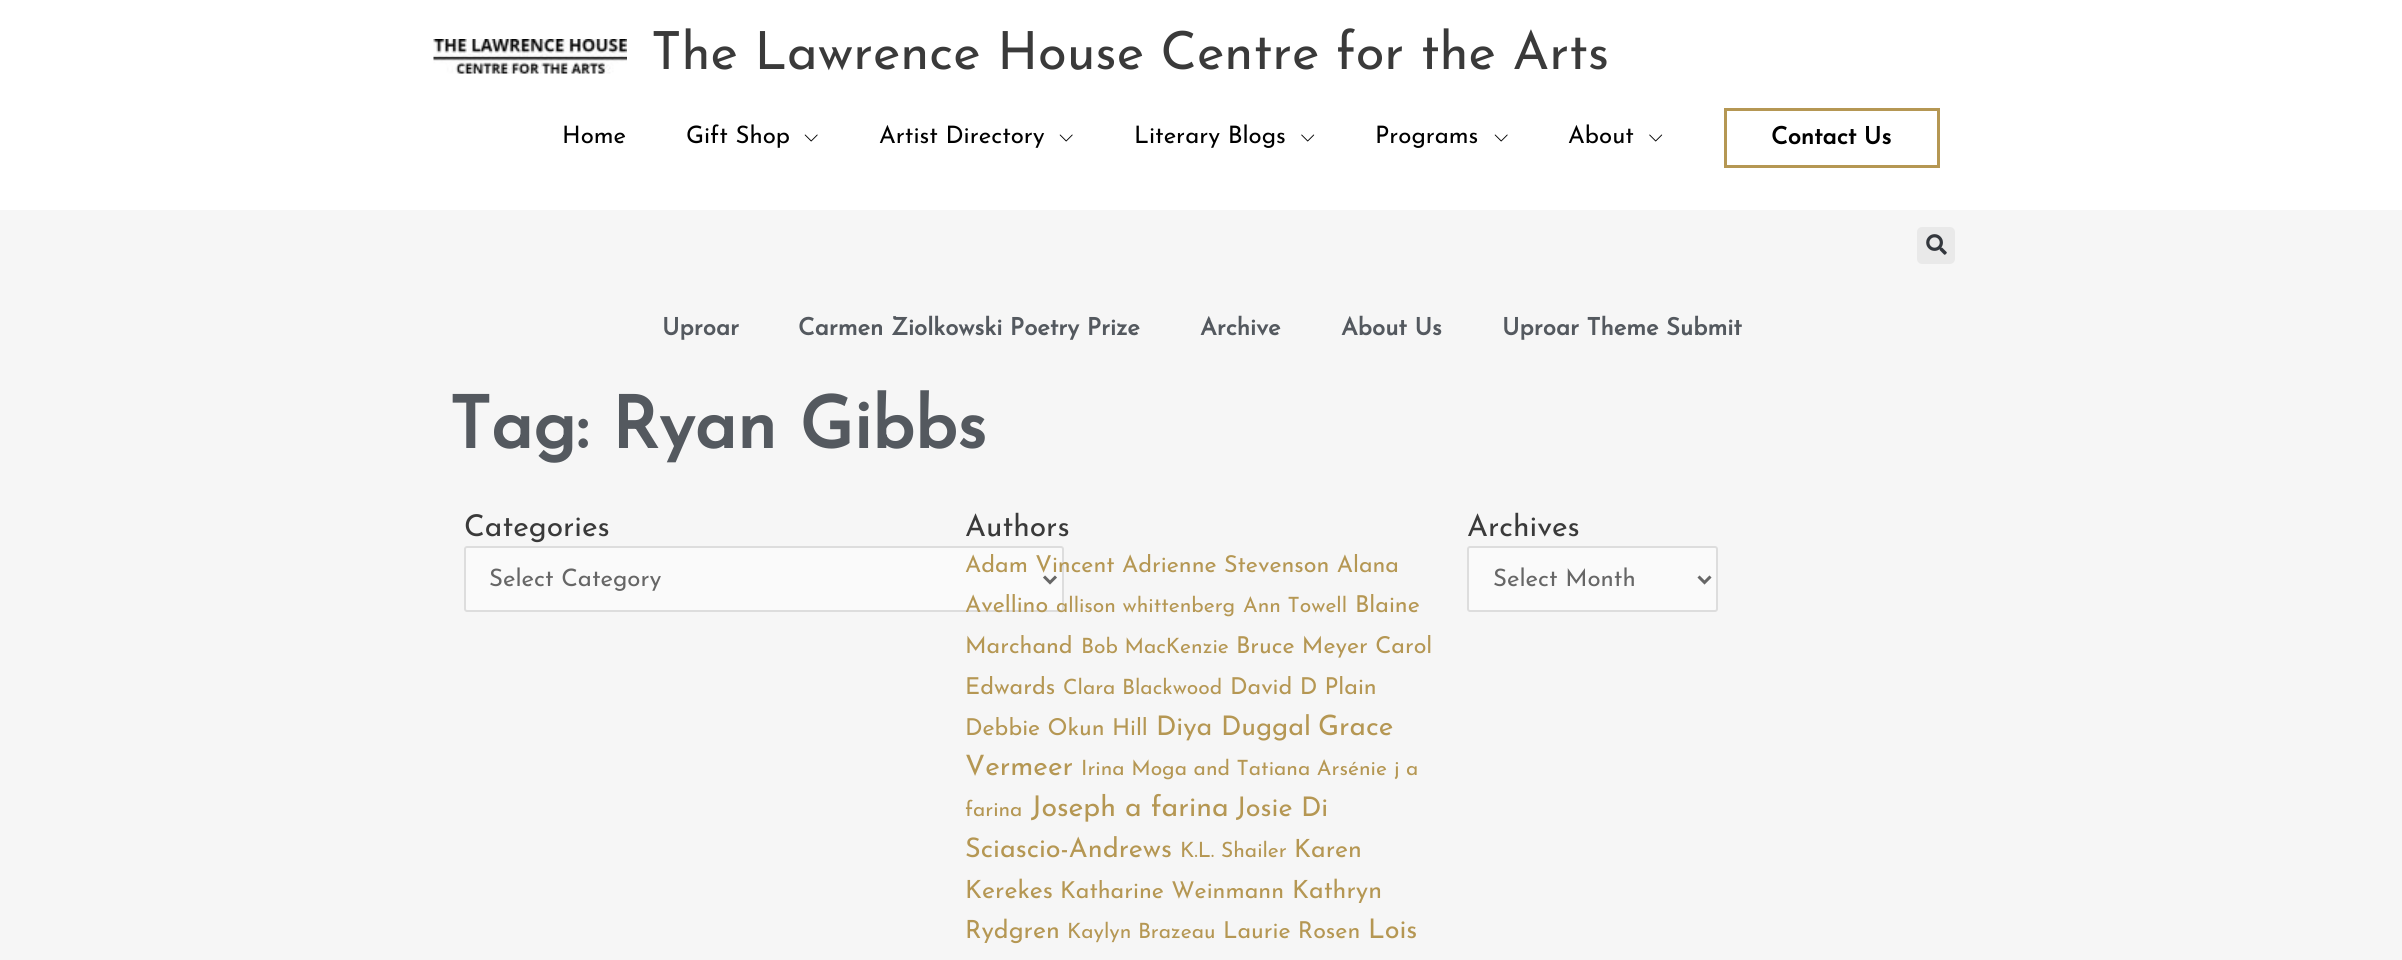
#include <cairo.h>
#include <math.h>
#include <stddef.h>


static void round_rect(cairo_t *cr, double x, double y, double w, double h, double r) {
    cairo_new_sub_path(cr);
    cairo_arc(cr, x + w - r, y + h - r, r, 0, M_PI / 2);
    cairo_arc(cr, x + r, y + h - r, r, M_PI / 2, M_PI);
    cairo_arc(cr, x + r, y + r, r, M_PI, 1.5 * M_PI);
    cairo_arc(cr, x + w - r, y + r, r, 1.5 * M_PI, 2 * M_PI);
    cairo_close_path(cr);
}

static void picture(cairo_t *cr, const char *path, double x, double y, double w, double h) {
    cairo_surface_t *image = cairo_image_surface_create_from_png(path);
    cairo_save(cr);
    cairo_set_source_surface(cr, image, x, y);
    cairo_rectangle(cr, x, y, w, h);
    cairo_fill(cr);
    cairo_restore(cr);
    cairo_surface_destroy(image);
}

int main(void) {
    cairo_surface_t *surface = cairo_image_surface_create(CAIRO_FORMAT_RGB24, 2402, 960);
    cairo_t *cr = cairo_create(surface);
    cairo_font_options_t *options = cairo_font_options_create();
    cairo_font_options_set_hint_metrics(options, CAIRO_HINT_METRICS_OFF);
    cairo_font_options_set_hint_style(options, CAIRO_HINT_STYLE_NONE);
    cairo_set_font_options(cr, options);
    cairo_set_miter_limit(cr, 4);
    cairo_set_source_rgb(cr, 0.961, 0.961, 0.961);
    cairo_paint(cr);
    cairo_set_source_rgb(cr, 1, 1, 1);
    cairo_rectangle(cr, 0, 0, 2402, 210);
    cairo_fill(cr);
    picture(cr, "img1.png", 433, 39, 194, 35);
    cairo_select_font_face(cr, "Josefin Sans Thin", CAIRO_FONT_SLANT_NORMAL, CAIRO_FONT_WEIGHT_NORMAL);
    cairo_set_font_size(cr, 52.5);
    cairo_set_source_rgb(cr, 0.227, 0.227, 0.227);
    cairo_move_to(cr, 651, 69);
    cairo_show_text(cr, "The Lawrence House Centre for the Arts");
    cairo_set_font_size(cr, 24);
    cairo_set_source_rgb(cr, 0, 0, 0);
    cairo_move_to(cr, 562, 143);
    cairo_show_text(cr, "Home");
    cairo_move_to(cr, 686, 143);
    cairo_show_text(cr, "Gift Shop");
    picture(cr, "img2.png", 804, 134, 14, 8);
    cairo_move_to(cr, 879, 143);
    cairo_show_text(cr, "Artist Directory");
    picture(cr, "img2.png", 1059, 134, 14, 8);
    cairo_move_to(cr, 1134, 143);
    cairo_show_text(cr, "Literary Blogs");
    picture(cr, "img3.png", 1301, 134, 14, 8);
    cairo_move_to(cr, 1375, 143);
    cairo_show_text(cr, "Programs");
    picture(cr, "img2.png", 1494, 134, 14, 8);
    cairo_move_to(cr, 1568, 143);
    cairo_show_text(cr, "About");
    picture(cr, "img3.png", 1649, 134, 14, 8);
    cairo_rectangle(cr, 1725.5, 109.5, 213, 57);
    cairo_set_source_rgb(cr, 0.71, 0.592, 0.325);
    cairo_set_line_width(cr, 3);
    cairo_stroke(cr);
    cairo_select_font_face(cr, "Josefin Sans", CAIRO_FONT_SLANT_NORMAL, CAIRO_FONT_WEIGHT_BOLD);
    cairo_set_source_rgb(cr, 0, 0, 0);
    cairo_move_to(cr, 1771, 144);
    cairo_show_text(cr, "Contact Us");
    cairo_set_source_rgb(cr, 0.914, 0.914, 0.914);
    round_rect(cr, 1917, 227, 38, 37, 5);
    cairo_fill(cr);
    picture(cr, "img4.png", 1926, 234, 21, 21);
    cairo_set_source_rgb(cr, 0.329, 0.349, 0.373);
    cairo_move_to(cr, 662, 335);
    cairo_show_text(cr, "Uproar");
    cairo_move_to(cr, 798, 335);
    cairo_show_text(cr, "Carmen Ziolkowski Poetry Prize");
    cairo_move_to(cr, 1200, 335);
    cairo_show_text(cr, "Archive");
    cairo_move_to(cr, 1341, 335);
    cairo_show_text(cr, "About Us");
    cairo_move_to(cr, 1502, 335);
    cairo_show_text(cr, "Uproar Theme Submit");
    cairo_set_font_size(cr, 72);
    cairo_move_to(cr, 449, 448);
    cairo_show_text(cr, "Tag: Ryan Gibbs");
    cairo_select_font_face(cr, "Josefin Sans Thin", CAIRO_FONT_SLANT_NORMAL, CAIRO_FONT_WEIGHT_NORMAL);
    cairo_set_font_size(cr, 30);
    cairo_set_source_rgb(cr, 0.227, 0.227, 0.227);
    cairo_move_to(cr, 464, 536);
    cairo_show_text(cr, "Categories");
    cairo_set_source_rgb(cr, 0.98, 0.98, 0.98);
    round_rect(cr, 465, 547, 598, 64, 2);
    cairo_fill_preserve(cr);
    cairo_set_source_rgb(cr, 0.867, 0.867, 0.867);
    cairo_set_line_width(cr, 2);
    cairo_stroke(cr);
    cairo_new_path(cr);
    cairo_move_to(cr, 1044, 576.5);
    cairo_line_to(cr, 1050, 582.5);
    cairo_line_to(cr, 1056, 576.5);
    cairo_set_source_rgb(cr, 0.4, 0.4, 0.4);
    cairo_set_line_width(cr, 3);
    cairo_stroke(cr);
    cairo_set_font_size(cr, 24);
    cairo_move_to(cr, 489, 586);
    cairo_show_text(cr, "Select Category");
    cairo_set_font_size(cr, 30);
    cairo_set_source_rgb(cr, 0.227, 0.227, 0.227);
    cairo_move_to(cr, 965, 536);
    cairo_show_text(cr, "Authors");
    cairo_set_font_size(cr, 23.25);
    cairo_set_source_rgb(cr, 0.71, 0.592, 0.325);
    cairo_move_to(cr, 965, 572);
    cairo_show_text(cr, "Adam Vincent Adrienne Stevenson Alana");
    cairo_move_to(cr, 965, 612);
    cairo_show_text(cr, "Avellino");
    cairo_set_font_size(cr, 21);
    cairo_move_to(cr, 1056, 612);
    cairo_show_text(cr, "allison whittenberg");
    cairo_move_to(cr, 1243, 612);
    cairo_show_text(cr, "Ann Towell");
    cairo_set_font_size(cr, 23.25);
    cairo_move_to(cr, 1355, 612);
    cairo_show_text(cr, "Blaine");
    cairo_move_to(cr, 965, 653);
    cairo_show_text(cr, "Marchand");
    cairo_set_font_size(cr, 21);
    cairo_move_to(cr, 1081, 653);
    cairo_show_text(cr, "Bob MacKenzie");
    cairo_set_font_size(cr, 23.25);
    cairo_move_to(cr, 1236, 653);
    cairo_show_text(cr, "Bruce Meyer Carol");
    cairo_move_to(cr, 965, 694);
    cairo_show_text(cr, "Edwards");
    cairo_set_font_size(cr, 21);
    cairo_move_to(cr, 1063, 694);
    cairo_show_text(cr, "Clara Blackwood");
    cairo_set_font_size(cr, 23.25);
    cairo_move_to(cr, 1230, 694);
    cairo_show_text(cr, "David D Plain");
    cairo_move_to(cr, 965, 735);
    cairo_show_text(cr, "Debbie Okun Hill");
    cairo_set_font_size(cr, 27);
    cairo_move_to(cr, 1156, 735);
    cairo_show_text(cr, "Diya Duggal");
    cairo_set_font_size(cr, 28);
    cairo_move_to(cr, 1318, 735);
    cairo_show_text(cr, "Grace");
    cairo_move_to(cr, 965, 775);
    cairo_show_text(cr, "Vermeer");
    cairo_set_font_size(cr, 21);
    cairo_move_to(cr, 1081, 775);
    cairo_show_text(cr, "Irina Moga and Tatiana Arsénie");
    cairo_move_to(cr, 1394, 775);
    cairo_show_text(cr, "j a");
    cairo_move_to(cr, 965, 816);
    cairo_show_text(cr, "farina");
    cairo_set_font_size(cr, 28.5);
    cairo_move_to(cr, 1031, 816);
    cairo_show_text(cr, "Joseph a farina");
    cairo_set_font_size(cr, 27);
    cairo_move_to(cr, 1236, 816);
    cairo_show_text(cr, "Josie Di");
    cairo_move_to(cr, 965, 857);
    cairo_show_text(cr, "Sciascio-Andrews");
    cairo_set_font_size(cr, 21);
    cairo_move_to(cr, 1180, 857);
    cairo_show_text(cr, "K.L. Shailer");
    cairo_set_font_size(cr, 25);
    cairo_move_to(cr, 1294, 857);
    cairo_show_text(cr, "Karen");
    cairo_move_to(cr, 965, 898);
    cairo_show_text(cr, "Kerekes");
    cairo_set_font_size(cr, 23.25);
    cairo_move_to(cr, 1060, 898);
    cairo_show_text(cr, "Katharine Weinmann");
    cairo_set_font_size(cr, 25);
    cairo_move_to(cr, 1292, 898);
    cairo_show_text(cr, "Kathryn");
    cairo_move_to(cr, 965, 938);
    cairo_show_text(cr, "Rydgren");
    cairo_set_font_size(cr, 21);
    cairo_move_to(cr, 1067, 938);
    cairo_show_text(cr, "Kaylyn Brazeau");
    cairo_set_font_size(cr, 23.25);
    cairo_move_to(cr, 1223, 938);
    cairo_show_text(cr, "Laurie Rosen");
    cairo_set_font_size(cr, 27);
    cairo_move_to(cr, 1368, 938);
    cairo_show_text(cr, "Lois");
    cairo_set_font_size(cr, 30);
    cairo_set_source_rgb(cr, 0.227, 0.227, 0.227);
    cairo_move_to(cr, 1467, 536);
    cairo_show_text(cr, "Archives");
    cairo_set_source_rgb(cr, 0.98, 0.98, 0.98);
    round_rect(cr, 1468, 547, 249, 64, 2);
    cairo_fill_preserve(cr);
    cairo_set_source_rgb(cr, 0.867, 0.867, 0.867);
    cairo_set_line_width(cr, 2);
    cairo_stroke(cr);
    cairo_new_path(cr);
    cairo_move_to(cr, 1698.5, 576.5);
    cairo_line_to(cr, 1704.5, 582.5);
    cairo_line_to(cr, 1710.5, 576.5);
    cairo_set_source_rgb(cr, 0.4, 0.4, 0.4);
    cairo_set_line_width(cr, 3);
    cairo_stroke(cr);
    cairo_set_font_size(cr, 24);
    cairo_move_to(cr, 1493, 586);
    cairo_show_text(cr, "Select Month");
    cairo_surface_write_to_png(surface, "page.png");
    cairo_font_options_destroy(options);
    cairo_destroy(cr);
    cairo_surface_destroy(surface);
    return 0;
}
